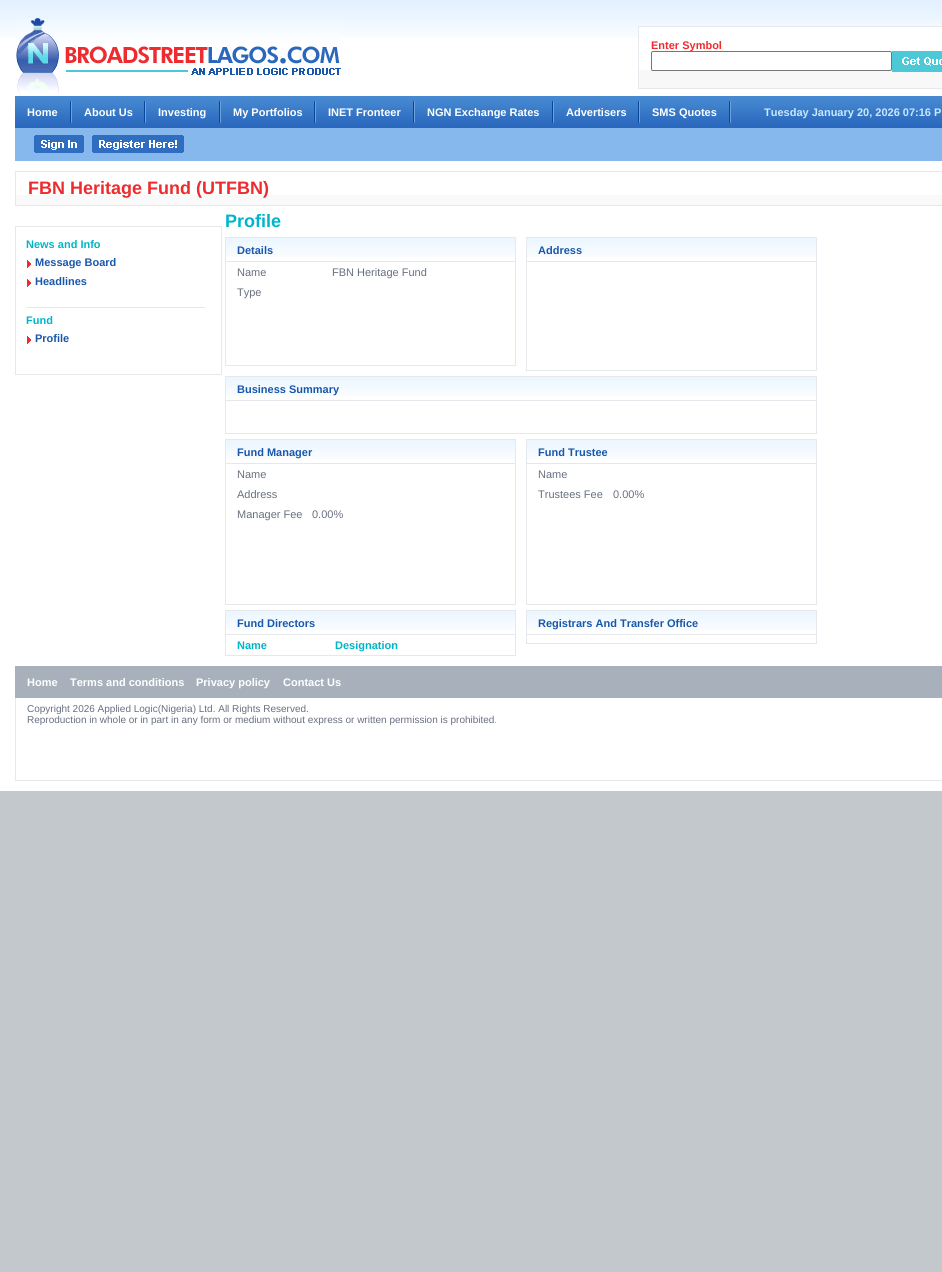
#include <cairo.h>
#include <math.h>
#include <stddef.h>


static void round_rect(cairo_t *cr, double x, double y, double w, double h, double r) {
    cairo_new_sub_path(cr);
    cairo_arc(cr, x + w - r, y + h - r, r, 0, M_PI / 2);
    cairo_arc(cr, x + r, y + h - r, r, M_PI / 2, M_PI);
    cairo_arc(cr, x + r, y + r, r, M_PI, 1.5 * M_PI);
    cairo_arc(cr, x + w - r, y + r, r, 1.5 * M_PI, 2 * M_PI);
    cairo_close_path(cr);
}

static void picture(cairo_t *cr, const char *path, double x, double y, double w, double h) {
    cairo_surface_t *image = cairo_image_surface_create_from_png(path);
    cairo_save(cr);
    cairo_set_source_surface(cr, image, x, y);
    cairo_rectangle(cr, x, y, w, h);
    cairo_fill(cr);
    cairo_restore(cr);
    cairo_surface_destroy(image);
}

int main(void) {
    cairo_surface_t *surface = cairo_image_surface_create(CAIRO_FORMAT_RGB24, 942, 1272);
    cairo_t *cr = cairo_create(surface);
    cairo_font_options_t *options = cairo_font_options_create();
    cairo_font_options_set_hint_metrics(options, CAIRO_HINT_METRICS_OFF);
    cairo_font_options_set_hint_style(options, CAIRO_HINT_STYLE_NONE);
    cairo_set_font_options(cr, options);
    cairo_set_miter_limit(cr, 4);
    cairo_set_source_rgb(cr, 0.765, 0.784, 0.8);
    cairo_paint(cr);
    cairo_set_source_rgb(cr, 1, 1, 1);
    cairo_rectangle(cr, 0, 38, 942, 753);
    cairo_fill(cr);
    picture(cr, "img1.png", 0, 0, 942, 38);
    picture(cr, "img2.png", 16, 18, 325, 77);
    cairo_set_source_rgb(cr, 0.969, 0.969, 0.969);
    cairo_rectangle(cr, 639, 70, 303, 18);
    cairo_fill(cr);
    cairo_set_source_rgb(cr, 1, 1, 1);
    cairo_rectangle(cr, 639, 27, 303, 11);
    cairo_fill(cr);
    cairo_rectangle(cr, 638.5, 26.5, 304, 62);
    cairo_set_source_rgb(cr, 0.898, 0.91, 0.925);
    cairo_set_line_width(cr, 1);
    cairo_stroke(cr);
    cairo_set_source_rgb(cr, 1, 1, 1);
    round_rect(cr, 651.5, 51.5, 240, 19, 1.5);
    cairo_fill_preserve(cr);
    cairo_set_source_rgb(cr, 0.463, 0.463, 0.463);
    cairo_stroke(cr);
    cairo_select_font_face(cr, "Liberation Sans", CAIRO_FONT_SLANT_NORMAL, CAIRO_FONT_WEIGHT_BOLD);
    cairo_set_font_size(cr, 11);
    cairo_set_source_rgb(cr, 0.925, 0.173, 0.18);
    cairo_move_to(cr, 651, 49);
    cairo_show_text(cr, "Enter Symbol");
    picture(cr, "img3.png", 892, 51, 50, 21);
    picture(cr, "img4.png", 70, 96, 694, 32);
    picture(cr, "img5.png", 15, 96, 55, 32);
    cairo_set_source_rgb(cr, 1, 1, 1);
    cairo_move_to(cr, 27, 116);
    cairo_show_text(cr, "Home");
    picture(cr, "img6.png", 70, 101, 2, 22);
    picture(cr, "img7.png", 72, 96, 72, 32);
    cairo_move_to(cr, 84, 116);
    cairo_show_text(cr, "About Us");
    picture(cr, "img6.png", 144, 101, 2, 22);
    picture(cr, "img8.png", 146, 96, 73, 32);
    cairo_move_to(cr, 158, 116);
    cairo_show_text(cr, "Investing");
    picture(cr, "img6.png", 219, 101, 2, 22);
    picture(cr, "img9.png", 221, 96, 93, 32);
    cairo_move_to(cr, 233, 116);
    cairo_show_text(cr, "My Portfolios");
    picture(cr, "img6.png", 314, 101, 2, 22);
    picture(cr, "img10.png", 316, 96, 97, 32);
    cairo_move_to(cr, 328, 116);
    cairo_show_text(cr, "INET Fronteer");
    picture(cr, "img6.png", 413, 101, 2, 22);
    picture(cr, "img11.png", 415, 96, 137, 32);
    cairo_move_to(cr, 427, 116);
    cairo_show_text(cr, "NGN Exchange Rates");
    picture(cr, "img6.png", 552, 101, 2, 22);
    picture(cr, "img12.png", 554, 96, 84, 32);
    cairo_move_to(cr, 566, 116);
    cairo_show_text(cr, "Advertisers");
    picture(cr, "img6.png", 638, 101, 2, 22);
    picture(cr, "img13.png", 640, 96, 89, 32);
    cairo_move_to(cr, 652, 116);
    cairo_show_text(cr, "SMS Quotes");
    picture(cr, "img6.png", 729, 101, 2, 22);
    picture(cr, "img14.png", 764, 96, 178, 32);
    cairo_set_source_rgb(cr, 0.78, 0.91, 1);
    cairo_move_to(cr, 764, 116);
    cairo_show_text(cr, "Tuesday January 20, 2026 07:16 P");
    cairo_set_source_rgb(cr, 0.525, 0.722, 0.929);
    cairo_rectangle(cr, 15, 128, 927, 33);
    cairo_fill(cr);
    picture(cr, "img15.png", 34, 135, 50, 18);
    picture(cr, "img16.png", 92, 135, 92, 18);
    cairo_set_source_rgb(cr, 0.973, 0.973, 0.973);
    cairo_rectangle(cr, 16, 195, 926, 10);
    cairo_fill(cr);
    cairo_rectangle(cr, 15.5, 171.5, 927, 34);
    cairo_set_source_rgb(cr, 0.898, 0.91, 0.925);
    cairo_stroke(cr);
    cairo_set_font_size(cr, 18);
    cairo_set_source_rgb(cr, 0.925, 0.173, 0.18);
    cairo_move_to(cr, 28, 194);
    cairo_show_text(cr, "FBN Heritage Fund (UTFBN)");
    cairo_rectangle(cr, 15.5, 226.5, 206, 148);
    cairo_set_source_rgb(cr, 0.898, 0.91, 0.925);
    cairo_stroke(cr);
    cairo_rectangle(cr, 26, 307, 179, 1);
    cairo_fill(cr);
    cairo_set_font_size(cr, 11);
    cairo_set_source_rgb(cr, 0, 0.71, 0.792);
    cairo_move_to(cr, 26, 248);
    cairo_show_text(cr, "News and Info");
    picture(cr, "img17.png", 27, 260, 4, 8);
    cairo_set_source_rgb(cr, 0.098, 0.341, 0.671);
    cairo_move_to(cr, 35, 266);
    cairo_show_text(cr, "Message Board");
    picture(cr, "img17.png", 27, 279, 4, 8);
    cairo_move_to(cr, 35, 285);
    cairo_show_text(cr, "Headlines");
    cairo_set_source_rgb(cr, 0, 0.71, 0.792);
    cairo_move_to(cr, 26, 324);
    cairo_show_text(cr, "Fund");
    picture(cr, "img17.png", 27, 336, 4, 8);
    cairo_set_source_rgb(cr, 0.098, 0.341, 0.671);
    cairo_move_to(cr, 35, 342);
    cairo_show_text(cr, "Profile");
    cairo_set_font_size(cr, 18);
    cairo_set_source_rgb(cr, 0, 0.71, 0.792);
    cairo_move_to(cr, 225, 227);
    cairo_show_text(cr, "Profile");
    picture(cr, "img18.png", 226, 238, 289, 19);
    cairo_rectangle(cr, 225.5, 237.5, 290, 128);
    cairo_set_source_rgb(cr, 0.898, 0.91, 0.925);
    cairo_stroke(cr);
    cairo_rectangle(cr, 226, 261, 289, 1);
    cairo_fill(cr);
    cairo_set_font_size(cr, 11);
    cairo_set_source_rgb(cr, 0.098, 0.341, 0.671);
    cairo_move_to(cr, 237, 254);
    cairo_show_text(cr, "Details");
    cairo_select_font_face(cr, "Liberation Sans", CAIRO_FONT_SLANT_NORMAL, CAIRO_FONT_WEIGHT_NORMAL);
    cairo_set_source_rgb(cr, 0.404, 0.435, 0.502);
    cairo_move_to(cr, 237, 276);
    cairo_show_text(cr, "Name");
    cairo_move_to(cr, 332, 276);
    cairo_show_text(cr, "FBN Heritage Fund");
    cairo_move_to(cr, 237, 296);
    cairo_show_text(cr, "Type");
    picture(cr, "img18.png", 527, 238, 289, 19);
    cairo_rectangle(cr, 526.5, 237.5, 290, 133);
    cairo_set_source_rgb(cr, 0.898, 0.91, 0.925);
    cairo_stroke(cr);
    cairo_rectangle(cr, 527, 261, 289, 1);
    cairo_fill(cr);
    cairo_select_font_face(cr, "Liberation Sans", CAIRO_FONT_SLANT_NORMAL, CAIRO_FONT_WEIGHT_BOLD);
    cairo_set_source_rgb(cr, 0.098, 0.341, 0.671);
    cairo_move_to(cr, 538, 254);
    cairo_show_text(cr, "Address");
    picture(cr, "img19.png", 226, 377, 590, 19);
    cairo_rectangle(cr, 225.5, 376.5, 591, 57);
    cairo_set_source_rgb(cr, 0.898, 0.91, 0.925);
    cairo_stroke(cr);
    cairo_rectangle(cr, 226, 400, 590, 1);
    cairo_fill(cr);
    cairo_set_source_rgb(cr, 0.098, 0.341, 0.671);
    cairo_move_to(cr, 237, 393);
    cairo_show_text(cr, "Business Summary");
    picture(cr, "img18.png", 226, 440, 289, 19);
    cairo_rectangle(cr, 225.5, 439.5, 290, 165);
    cairo_set_source_rgb(cr, 0.898, 0.91, 0.925);
    cairo_stroke(cr);
    cairo_rectangle(cr, 226, 463, 289, 1);
    cairo_fill(cr);
    cairo_set_source_rgb(cr, 0.098, 0.341, 0.671);
    cairo_move_to(cr, 237, 456);
    cairo_show_text(cr, "Fund Manager");
    cairo_select_font_face(cr, "Liberation Sans", CAIRO_FONT_SLANT_NORMAL, CAIRO_FONT_WEIGHT_NORMAL);
    cairo_set_source_rgb(cr, 0.404, 0.435, 0.502);
    cairo_move_to(cr, 237, 478);
    cairo_show_text(cr, "Name");
    cairo_move_to(cr, 237, 498);
    cairo_show_text(cr, "Address");
    cairo_move_to(cr, 237, 518);
    cairo_show_text(cr, "Manager Fee");
    cairo_move_to(cr, 312, 518);
    cairo_show_text(cr, "0.00%");
    picture(cr, "img18.png", 527, 440, 289, 19);
    cairo_rectangle(cr, 526.5, 439.5, 290, 165);
    cairo_set_source_rgb(cr, 0.898, 0.91, 0.925);
    cairo_stroke(cr);
    cairo_rectangle(cr, 527, 463, 289, 1);
    cairo_fill(cr);
    cairo_select_font_face(cr, "Liberation Sans", CAIRO_FONT_SLANT_NORMAL, CAIRO_FONT_WEIGHT_BOLD);
    cairo_set_source_rgb(cr, 0.098, 0.341, 0.671);
    cairo_move_to(cr, 538, 456);
    cairo_show_text(cr, "Fund Trustee");
    cairo_select_font_face(cr, "Liberation Sans", CAIRO_FONT_SLANT_NORMAL, CAIRO_FONT_WEIGHT_NORMAL);
    cairo_set_source_rgb(cr, 0.404, 0.435, 0.502);
    cairo_move_to(cr, 538, 478);
    cairo_show_text(cr, "Name");
    cairo_move_to(cr, 538, 498);
    cairo_show_text(cr, "Trustees Fee");
    cairo_move_to(cr, 613, 498);
    cairo_show_text(cr, "0.00%");
    picture(cr, "img18.png", 226, 611, 289, 19);
    cairo_rectangle(cr, 225.5, 610.5, 290, 45);
    cairo_set_source_rgb(cr, 0.898, 0.91, 0.925);
    cairo_stroke(cr);
    cairo_rectangle(cr, 226, 634, 289, 1);
    cairo_fill(cr);
    cairo_select_font_face(cr, "Liberation Sans", CAIRO_FONT_SLANT_NORMAL, CAIRO_FONT_WEIGHT_BOLD);
    cairo_set_source_rgb(cr, 0.098, 0.341, 0.671);
    cairo_move_to(cr, 237, 627);
    cairo_show_text(cr, "Fund Directors");
    cairo_set_source_rgb(cr, 0, 0.71, 0.792);
    cairo_move_to(cr, 237, 649);
    cairo_show_text(cr, "Name");
    cairo_move_to(cr, 335, 649);
    cairo_show_text(cr, "Designation");
    picture(cr, "img18.png", 527, 611, 289, 19);
    cairo_rectangle(cr, 526.5, 610.5, 290, 33);
    cairo_set_source_rgb(cr, 0.898, 0.91, 0.925);
    cairo_stroke(cr);
    cairo_rectangle(cr, 527, 634, 289, 1);
    cairo_fill(cr);
    cairo_set_source_rgb(cr, 0.098, 0.341, 0.671);
    cairo_move_to(cr, 538, 627);
    cairo_show_text(cr, "Registrars And Transfer Office");
    cairo_set_source_rgb(cr, 0.659, 0.694, 0.733);
    cairo_rectangle(cr, 15, 666, 927, 32);
    cairo_fill(cr);
    cairo_set_source_rgb(cr, 1, 1, 1);
    cairo_move_to(cr, 27, 686);
    cairo_show_text(cr, "Home");
    cairo_move_to(cr, 70, 686);
    cairo_show_text(cr, "Terms and conditions");
    cairo_move_to(cr, 196, 686);
    cairo_show_text(cr, "Privacy policy");
    cairo_move_to(cr, 283, 686);
    cairo_show_text(cr, "Contact Us");
    cairo_set_source_rgb(cr, 0.898, 0.91, 0.925);
    cairo_rectangle(cr, 15, 780, 927, 1);
    cairo_fill(cr);
    cairo_rectangle(cr, 15, 698, 1, 83);
    cairo_fill(cr);
    cairo_select_font_face(cr, "Liberation Sans", CAIRO_FONT_SLANT_NORMAL, CAIRO_FONT_WEIGHT_NORMAL);
    cairo_set_font_size(cr, 10);
    cairo_set_source_rgb(cr, 0.404, 0.435, 0.502);
    cairo_move_to(cr, 27, 712);
    cairo_show_text(cr, "Copyright 2026 Applied Logic(Nigeria) Ltd. All Rights Reserved.");
    cairo_move_to(cr, 27, 723);
    cairo_show_text(cr, "Reproduction in whole or in part in any form or medium without express or written permission is prohibited.");
    cairo_surface_write_to_png(surface, "page.png");
    cairo_font_options_destroy(options);
    cairo_destroy(cr);
    cairo_surface_destroy(surface);
    return 0;
}
